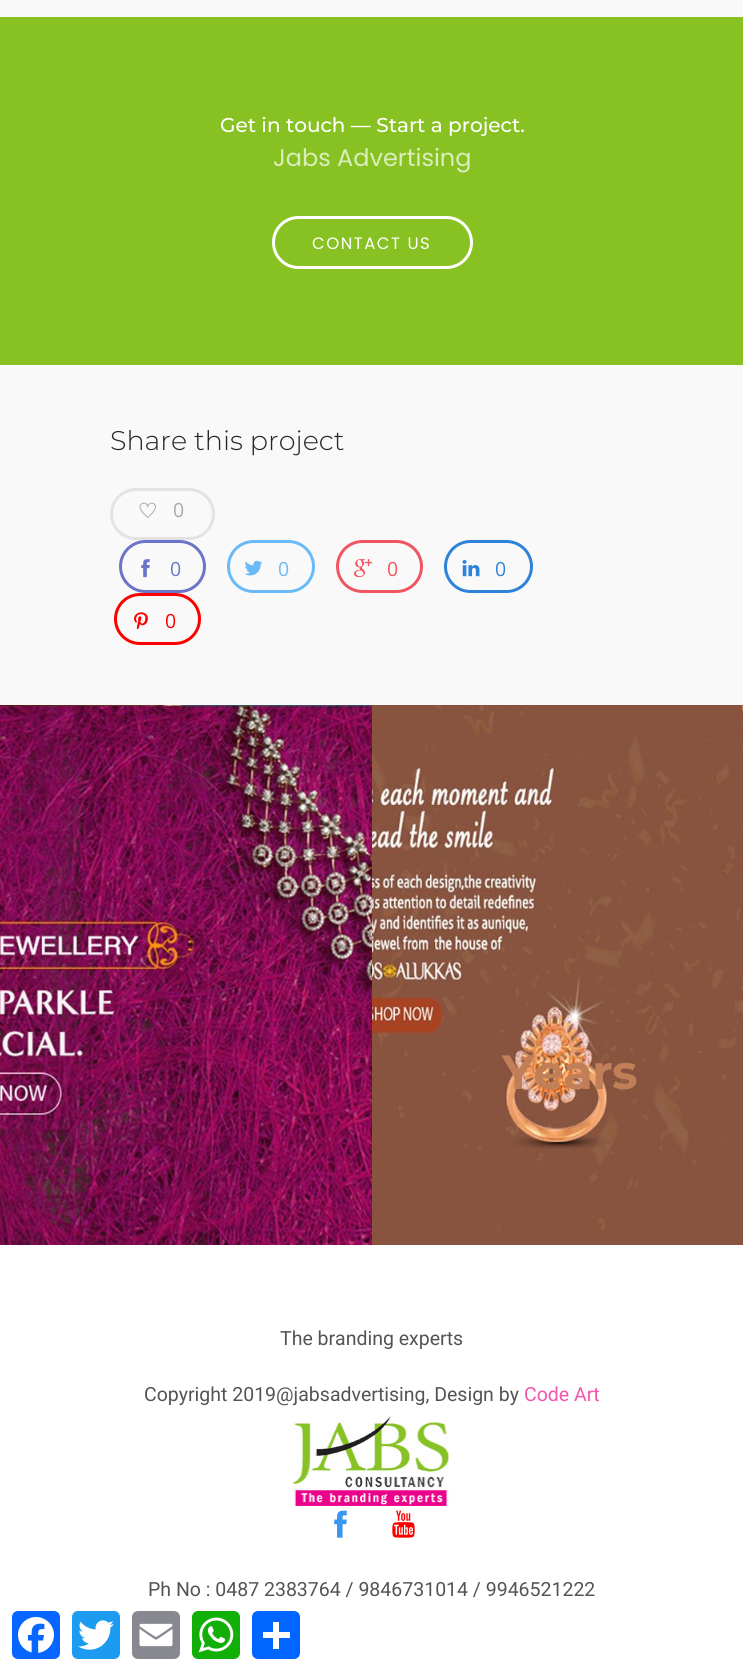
#include <cairo.h>
#include <math.h>
#include <stddef.h>


static void spaced_text(cairo_t *cr, double x, double y, const char *s, double letter, double word) {
    cairo_move_to(cr, x, y);
    while (*s) {
        char ch[5] = {0};
        int n = 0;
        do ch[n++] = *s++; while ((*s & 0xC0) == 0x80);
        cairo_show_text(cr, ch);
        cairo_rel_move_to(cr, letter + word * (*ch == ' '), 0);
    }
}

static void round_rect(cairo_t *cr, double x, double y, double w, double h, double r) {
    cairo_new_sub_path(cr);
    cairo_arc(cr, x + w - r, y + h - r, r, 0, M_PI / 2);
    cairo_arc(cr, x + r, y + h - r, r, M_PI / 2, M_PI);
    cairo_arc(cr, x + r, y + r, r, M_PI, 1.5 * M_PI);
    cairo_arc(cr, x + w - r, y + r, r, 1.5 * M_PI, 2 * M_PI);
    cairo_close_path(cr);
}

static void picture(cairo_t *cr, const char *path, double x, double y, double w, double h) {
    cairo_surface_t *image = cairo_image_surface_create_from_png(path);
    cairo_save(cr);
    cairo_set_source_surface(cr, image, x, y);
    cairo_rectangle(cr, x, y, w, h);
    cairo_fill(cr);
    cairo_restore(cr);
    cairo_surface_destroy(image);
}

int main(void) {
    cairo_surface_t *surface = cairo_image_surface_create(CAIRO_FORMAT_RGB24, 743, 1671);
    cairo_t *cr = cairo_create(surface);
    cairo_font_options_t *options = cairo_font_options_create();
    cairo_font_options_set_hint_metrics(options, CAIRO_HINT_METRICS_OFF);
    cairo_font_options_set_hint_style(options, CAIRO_HINT_STYLE_NONE);
    cairo_set_font_options(cr, options);
    cairo_set_miter_limit(cr, 4);
    cairo_set_source_rgb(cr, 0.973, 0.973, 0.973);
    cairo_paint(cr);
    cairo_set_source_rgb(cr, 0.533, 0.761, 0.133);
    cairo_rectangle(cr, 0, 17, 743, 348);
    cairo_fill(cr);
    cairo_select_font_face(cr, "Montserrat Medium", CAIRO_FONT_SLANT_NORMAL, CAIRO_FONT_WEIGHT_NORMAL);
    cairo_set_font_size(cr, 20);
    cairo_set_source_rgb(cr, 1, 1, 1);
    cairo_move_to(cr, 220, 132);
    cairo_show_text(cr, "Get in touch — Start a project.");
    cairo_select_font_face(cr, "Poppins", CAIRO_FONT_SLANT_NORMAL, CAIRO_FONT_WEIGHT_NORMAL);
    cairo_set_font_size(cr, 24);
    cairo_set_source_rgb(cr, 0.859, 0.929, 0.741);
    cairo_move_to(cr, 273, 166);
    cairo_show_text(cr, "Jabs Advertising");
    round_rect(cr, 273.5, 217.5, 198, 50, 25);
    cairo_set_source_rgb(cr, 1, 1, 1);
    cairo_set_line_width(cr, 3);
    cairo_stroke(cr);
    cairo_set_font_size(cr, 16.5);
    spaced_text(cr, 312, 249, "CONTACT US", 1.5, 0);
    cairo_select_font_face(cr, "Montserrat Light", CAIRO_FONT_SLANT_NORMAL, CAIRO_FONT_WEIGHT_NORMAL);
    cairo_set_font_size(cr, 27);
    cairo_set_source_rgb(cr, 0.149, 0.149, 0.149);
    cairo_move_to(cr, 110, 450);
    cairo_show_text(cr, "Share this project");
    round_rect(cr, 111.5, 489.5, 102, 49, 24.5);
    cairo_set_source_rgb(cr, 0.89, 0.89, 0.89);
    cairo_stroke(cr);
    picture(cr, "img1.png", 139, 502, 17, 16);
    cairo_select_font_face(cr, "Open Sans", CAIRO_FONT_SLANT_NORMAL, CAIRO_FONT_WEIGHT_NORMAL);
    cairo_set_font_size(cr, 19.5);
    cairo_set_source_rgb(cr, 0.667, 0.667, 0.667);
    spaced_text(cr, 173, 517, "0", 1.5, 0);
    round_rect(cr, 120.5, 541.5, 84, 50, 25);
    cairo_set_source_rgb(cr, 0.416, 0.459, 0.784);
    cairo_stroke(cr);
    picture(cr, "img2.png", 141, 559, 9, 19);
    spaced_text(cr, 170, 576, "0", 1.5, 0);
    round_rect(cr, 228.5, 541.5, 85, 50, 25);
    cairo_set_source_rgb(cr, 0.416, 0.729, 0.969);
    cairo_stroke(cr);
    picture(cr, "img3.png", 244, 560, 19, 16);
    spaced_text(cr, 278, 576, "0", 1.5, 0);
    round_rect(cr, 337.5, 541.5, 84, 50, 25);
    cairo_set_source_rgb(cr, 0.941, 0.337, 0.376);
    cairo_stroke(cr);
    picture(cr, "img4.png", 354, 559, 18, 19);
    spaced_text(cr, 387, 576, "0", 1.5, 0);
    round_rect(cr, 445.5, 541.5, 86, 50, 25);
    cairo_set_source_rgb(cr, 0.18, 0.51, 0.851);
    cairo_stroke(cr);
    picture(cr, "img5.png", 462, 560, 18, 17);
    spaced_text(cr, 495, 576, "0", 1.5, 0);
    round_rect(cr, 115.5, 594.5, 84, 49, 24.5);
    cairo_set_source_rgb(cr, 1, 0, 0);
    cairo_stroke(cr);
    picture(cr, "img6.png", 134, 612, 14, 18);
    spaced_text(cr, 165, 628, "0", 1.5, 0);
    picture(cr, "img7.png", 0, 705, 372, 540);
    picture(cr, "img8.png", 372, 705, 371, 540);
    cairo_select_font_face(cr, "Montserrat", CAIRO_FONT_SLANT_NORMAL, CAIRO_FONT_WEIGHT_BOLD);
    cairo_set_font_size(cr, 48);
    cairo_set_source_rgb(cr, 0.753, 0.498, 0.341);
    spaced_text(cr, 502, 1089, "Years", -0.75, 0);
    cairo_set_source_rgb(cr, 1, 1, 1);
    cairo_rectangle(cr, 0, 1245, 743, 426);
    cairo_fill(cr);
    cairo_select_font_face(cr, "Roboto", CAIRO_FONT_SLANT_NORMAL, CAIRO_FONT_WEIGHT_NORMAL);
    cairo_set_font_size(cr, 19.5);
    cairo_set_source_rgb(cr, 0.329, 0.329, 0.329);
    cairo_move_to(cr, 280, 1345);
    cairo_show_text(cr, "The branding experts");
    cairo_move_to(cr, 144, 1401);
    cairo_show_text(cr, "Copyright 2019@jabsadvertising, Design by");
    cairo_set_source_rgb(cr, 0.941, 0.333, 0.69);
    cairo_move_to(cr, 524, 1401);
    cairo_show_text(cr, "Code Art");
    picture(cr, "img9.png", 289, 1416, 161, 90);
    picture(cr, "img10.png", 334, 1510, 13, 28);
    picture(cr, "img11.png", 392, 1510, 23, 28);
    cairo_set_source_rgb(cr, 0.329, 0.329, 0.329);
    cairo_move_to(cr, 148, 1596);
    cairo_show_text(cr, "Ph No : 0487 2383764 / 9846731014 / 9946521222");
    cairo_set_source_rgb(cr, 0.031, 0.4, 1);
    round_rect(cr, 12, 1611, 48, 48, 6);
    cairo_fill(cr);
    picture(cr, "img12.png", 18, 1617, 36, 36);
    cairo_set_source_rgb(cr, 0.114, 0.608, 0.941);
    round_rect(cr, 72, 1611, 48, 48, 6);
    cairo_fill(cr);
    picture(cr, "img13.png", 78, 1620, 36, 30);
    cairo_set_source_rgb(cr, 0.533, 0.537, 0.565);
    round_rect(cr, 132, 1611, 48, 48, 6);
    cairo_fill(cr);
    picture(cr, "img14.png", 139, 1623, 34, 24);
    cairo_set_source_rgb(cr, 0.071, 0.686, 0.039);
    round_rect(cr, 192, 1611, 48, 48, 6);
    cairo_fill(cr);
    picture(cr, "img15.png", 198, 1617, 36, 36);
    cairo_set_source_rgb(cr, 0.004, 0.4, 1);
    round_rect(cr, 252, 1611, 48, 48, 6);
    cairo_fill(cr);
    cairo_set_source_rgb(cr, 1, 1, 1);
    cairo_rectangle(cr, 273, 1622, 6, 27);
    cairo_fill(cr);
    cairo_rectangle(cr, 263, 1632, 27, 6);
    cairo_fill(cr);
    cairo_surface_write_to_png(surface, "page.png");
    cairo_font_options_destroy(options);
    cairo_destroy(cr);
    cairo_surface_destroy(surface);
    return 0;
}
